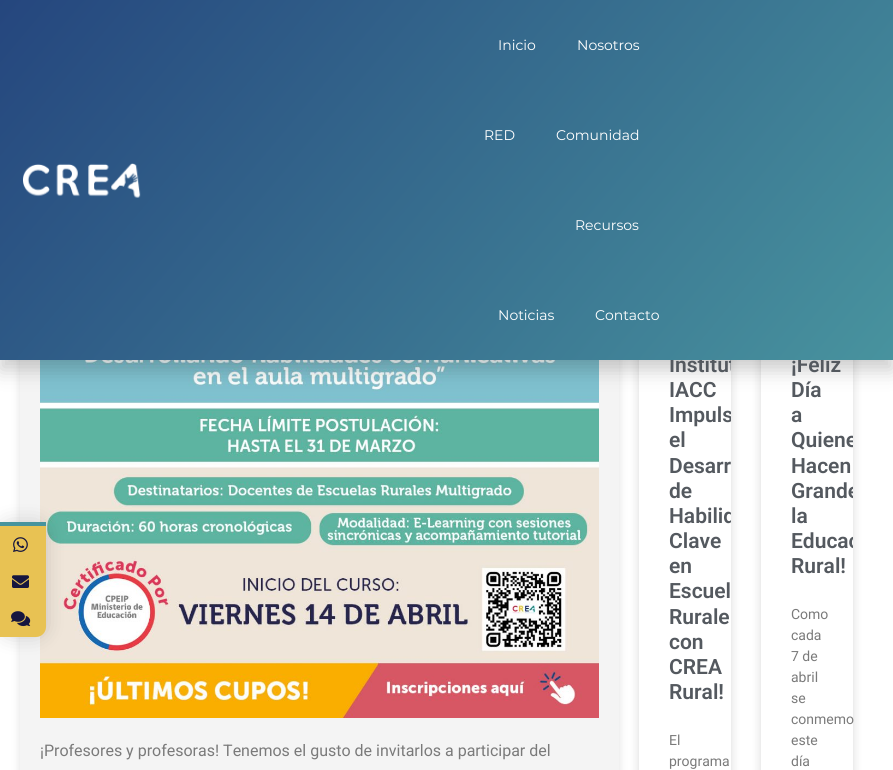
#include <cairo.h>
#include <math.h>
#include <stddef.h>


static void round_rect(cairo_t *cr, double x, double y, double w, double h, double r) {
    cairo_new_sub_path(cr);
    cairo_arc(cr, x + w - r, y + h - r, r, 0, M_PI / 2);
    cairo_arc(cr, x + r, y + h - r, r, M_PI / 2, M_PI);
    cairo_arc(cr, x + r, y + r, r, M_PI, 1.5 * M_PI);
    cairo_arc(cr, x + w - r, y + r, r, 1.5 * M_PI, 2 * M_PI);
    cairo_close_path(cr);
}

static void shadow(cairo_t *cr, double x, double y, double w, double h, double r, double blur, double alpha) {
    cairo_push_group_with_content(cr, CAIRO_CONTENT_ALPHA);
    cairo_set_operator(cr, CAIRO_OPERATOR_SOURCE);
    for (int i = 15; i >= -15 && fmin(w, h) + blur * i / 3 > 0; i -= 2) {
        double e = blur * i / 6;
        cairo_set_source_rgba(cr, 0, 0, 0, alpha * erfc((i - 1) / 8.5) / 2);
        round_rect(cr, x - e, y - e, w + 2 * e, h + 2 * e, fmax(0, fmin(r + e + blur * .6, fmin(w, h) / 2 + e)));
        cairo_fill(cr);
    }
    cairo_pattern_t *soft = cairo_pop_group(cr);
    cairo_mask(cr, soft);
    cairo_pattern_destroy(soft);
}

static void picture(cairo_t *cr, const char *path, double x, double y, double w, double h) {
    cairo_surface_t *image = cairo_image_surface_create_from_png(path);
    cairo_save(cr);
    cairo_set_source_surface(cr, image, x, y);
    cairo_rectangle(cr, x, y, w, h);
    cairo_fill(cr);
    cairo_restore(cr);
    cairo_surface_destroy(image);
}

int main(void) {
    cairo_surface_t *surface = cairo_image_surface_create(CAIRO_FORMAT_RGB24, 893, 770);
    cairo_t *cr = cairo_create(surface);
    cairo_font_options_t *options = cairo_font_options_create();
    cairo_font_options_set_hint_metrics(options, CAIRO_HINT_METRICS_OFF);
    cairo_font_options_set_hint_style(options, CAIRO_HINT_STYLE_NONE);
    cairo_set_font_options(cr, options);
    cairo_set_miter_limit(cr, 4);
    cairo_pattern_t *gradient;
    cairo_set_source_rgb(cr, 1, 1, 1);
    cairo_paint(cr);
    cairo_set_source_rgb(cr, 0, 0, 0);
    shadow(cr, 20, 125, 599, 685, 25, 5, 0.12);
    cairo_set_source_rgb(cr, 0.957, 0.957, 0.957);
    cairo_rectangle(cr, 20, 360, 599, 410);
    cairo_fill(cr);
    picture(cr, "img5.png", 40, 360, 559, 358);
    cairo_set_source_rgb(cr, 0, 0, 0);
    shadow(cr, 639, 145, 92, 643, 3, 5, 0.15);
    cairo_set_source_rgb(cr, 1, 1, 1);
    cairo_rectangle(cr, 639, 360, 92, 410);
    cairo_fill(cr);
    cairo_set_source_rgb(cr, 0, 0, 0);
    shadow(cr, 761, 145, 92, 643, 3, 5, 0.15);
    cairo_set_source_rgb(cr, 1, 1, 1);
    cairo_rectangle(cr, 761, 360, 92, 410);
    cairo_fill(cr);
    cairo_set_source_rgb(cr, 0, 0, 0);
    shadow(cr, 0, 10, 893, 360, 0, 10, 0.2);
    cairo_save(cr);
    round_rect(cr, 639, 145, 92, 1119, 3);
    cairo_clip(cr);
    cairo_select_font_face(cr, "Roboto SemiBold", CAIRO_FONT_SLANT_NORMAL, CAIRO_FONT_WEIGHT_NORMAL);
    cairo_set_font_size(cr, 21);
    cairo_set_source_rgb(cr, 0.329, 0.349, 0.373);
    cairo_move_to(cr, 669, 372);
    cairo_show_text(cr, "Institut");
    cairo_restore(cr);
    cairo_select_font_face(cr, "Roboto SemiBold", CAIRO_FONT_SLANT_NORMAL, CAIRO_FONT_WEIGHT_NORMAL);
    cairo_set_font_size(cr, 21);
    cairo_set_source_rgb(cr, 0.329, 0.349, 0.373);
    cairo_move_to(cr, 791, 372);
    cairo_show_text(cr, "¡Feliz");
    gradient = cairo_pattern_create_linear(96, -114, 797, 474);
    cairo_pattern_add_color_stop_rgba(gradient, 0, 0.145, 0.275, 0.494, 1);
    cairo_pattern_add_color_stop_rgba(gradient, 1, 0.282, 0.576, 0.62, 1);
    cairo_set_source(cr, gradient);
    cairo_pattern_destroy(gradient);
    cairo_rectangle(cr, 0, 0, 893, 360);
    cairo_fill(cr);
    picture(cr, "img1.png", 23, 163, 118, 35);
    cairo_select_font_face(cr, "Montserrat", CAIRO_FONT_SLANT_NORMAL, CAIRO_FONT_WEIGHT_NORMAL);
    cairo_set_font_size(cr, 14);
    cairo_set_source_rgb(cr, 1, 1, 1);
    cairo_move_to(cr, 498, 50);
    cairo_show_text(cr, "Inicio");
    cairo_move_to(cr, 577, 50);
    cairo_show_text(cr, "Nosotros");
    cairo_move_to(cr, 484, 140);
    cairo_show_text(cr, "RED");
    cairo_move_to(cr, 556, 140);
    cairo_show_text(cr, "Comunidad");
    cairo_move_to(cr, 575, 230);
    cairo_show_text(cr, "Recursos");
    cairo_move_to(cr, 498, 320);
    cairo_show_text(cr, "Noticias");
    cairo_move_to(cr, 595, 320);
    cairo_show_text(cr, "Contacto");
    cairo_set_source_rgb(cr, 0, 0, 0);
    shadow(cr, 0, 522, 46, 115, 10, 10, 0.15);
    cairo_set_source_rgb(cr, 0.91, 0.761, 0.325);
    cairo_new_path(cr);
    cairo_move_to(cr, 0, 526);
    cairo_line_to(cr, 46, 526);
    cairo_line_to(cr, 46, 627);
    cairo_curve_to(cr, 46, 632.5, 41.5, 637, 36, 637);
    cairo_line_to(cr, 0, 637);
    cairo_close_path(cr);
    cairo_fill(cr);
    cairo_set_source_rgb(cr, 0.275, 0.58, 0.62);
    cairo_rectangle(cr, 0, 522, 46, 4);
    cairo_fill(cr);
    picture(cr, "img2.png", 13, 537, 15, 15);
    picture(cr, "img3.png", 12, 575, 17, 13);
    picture(cr, "img4.png", 11, 611, 20, 16);
    cairo_select_font_face(cr, "Roboto", CAIRO_FONT_SLANT_NORMAL, CAIRO_FONT_WEIGHT_NORMAL);
    cairo_set_font_size(cr, 16);
    cairo_set_source_rgb(cr, 0.478, 0.478, 0.478);
    cairo_move_to(cr, 40, 756);
    cairo_show_text(cr, "¡Profesores y profesoras! Tenemos el gusto de invitarlos a participar del");
    cairo_select_font_face(cr, "Roboto SemiBold", CAIRO_FONT_SLANT_NORMAL, CAIRO_FONT_WEIGHT_NORMAL);
    cairo_set_font_size(cr, 21);
    cairo_set_source_rgb(cr, 0.329, 0.349, 0.373);
    cairo_move_to(cr, 669, 397);
    cairo_show_text(cr, "IACC");
    cairo_save(cr);
    round_rect(cr, 639, 145, 92, 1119, 3);
    cairo_clip(cr);
    cairo_move_to(cr, 669, 422);
    cairo_show_text(cr, "Impuls");
    cairo_restore(cr);
    cairo_move_to(cr, 669, 447);
    cairo_show_text(cr, "el");
    cairo_move_to(cr, 669, 473);
    cairo_show_text(cr, "Desarr");
    cairo_move_to(cr, 669, 498);
    cairo_show_text(cr, "de");
    cairo_save(cr);
    round_rect(cr, 639, 145, 92, 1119, 3);
    cairo_clip(cr);
    cairo_move_to(cr, 669, 523);
    cairo_show_text(cr, "Habilid");
    cairo_restore(cr);
    cairo_move_to(cr, 669, 548);
    cairo_show_text(cr, "Clave");
    cairo_move_to(cr, 669, 573);
    cairo_show_text(cr, "en");
    cairo_move_to(cr, 669, 598);
    cairo_show_text(cr, "Escuel");
    cairo_move_to(cr, 669, 624);
    cairo_show_text(cr, "Rurale");
    cairo_move_to(cr, 669, 649);
    cairo_show_text(cr, "con");
    cairo_move_to(cr, 669, 674);
    cairo_show_text(cr, "CREA");
    cairo_move_to(cr, 669, 699);
    cairo_show_text(cr, "Rural!");
    cairo_select_font_face(cr, "Roboto", CAIRO_FONT_SLANT_NORMAL, CAIRO_FONT_WEIGHT_NORMAL);
    cairo_set_font_size(cr, 14);
    cairo_set_source_rgb(cr, 0.478, 0.478, 0.478);
    cairo_move_to(cr, 669, 745);
    cairo_show_text(cr, "El");
    cairo_move_to(cr, 669, 766);
    cairo_show_text(cr, "programa");
    cairo_select_font_face(cr, "Roboto SemiBold", CAIRO_FONT_SLANT_NORMAL, CAIRO_FONT_WEIGHT_NORMAL);
    cairo_set_font_size(cr, 21);
    cairo_set_source_rgb(cr, 0.329, 0.349, 0.373);
    cairo_move_to(cr, 791, 397);
    cairo_show_text(cr, "Día");
    cairo_move_to(cr, 791, 422);
    cairo_show_text(cr, "a");
    cairo_save(cr);
    round_rect(cr, 761, 145, 92, 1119, 3);
    cairo_clip(cr);
    cairo_move_to(cr, 791, 447);
    cairo_show_text(cr, "Quiene");
    cairo_restore(cr);
    cairo_move_to(cr, 791, 473);
    cairo_show_text(cr, "Hacen");
    cairo_save(cr);
    round_rect(cr, 761, 145, 92, 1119, 3);
    cairo_clip(cr);
    cairo_move_to(cr, 791, 498);
    cairo_show_text(cr, "Grande");
    cairo_restore(cr);
    cairo_move_to(cr, 791, 523);
    cairo_show_text(cr, "la");
    cairo_save(cr);
    round_rect(cr, 761, 145, 92, 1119, 3);
    cairo_clip(cr);
    cairo_move_to(cr, 791, 548);
    cairo_show_text(cr, "Educac");
    cairo_restore(cr);
    cairo_move_to(cr, 791, 573);
    cairo_show_text(cr, "Rural!");
    cairo_select_font_face(cr, "Roboto", CAIRO_FONT_SLANT_NORMAL, CAIRO_FONT_WEIGHT_NORMAL);
    cairo_set_font_size(cr, 14);
    cairo_set_source_rgb(cr, 0.478, 0.478, 0.478);
    cairo_move_to(cr, 791, 619);
    cairo_show_text(cr, "Como");
    cairo_move_to(cr, 791, 640);
    cairo_show_text(cr, "cada");
    cairo_move_to(cr, 791, 661);
    cairo_show_text(cr, "7 de");
    cairo_move_to(cr, 791, 682);
    cairo_show_text(cr, "abril");
    cairo_move_to(cr, 791, 703);
    cairo_show_text(cr, "se");
    cairo_move_to(cr, 791, 724);
    cairo_show_text(cr, "conmemo");
    cairo_move_to(cr, 791, 745);
    cairo_show_text(cr, "este");
    cairo_move_to(cr, 791, 766);
    cairo_show_text(cr, "día");
    cairo_surface_write_to_png(surface, "page.png");
    cairo_font_options_destroy(options);
    cairo_destroy(cr);
    cairo_surface_destroy(surface);
    return 0;
}
